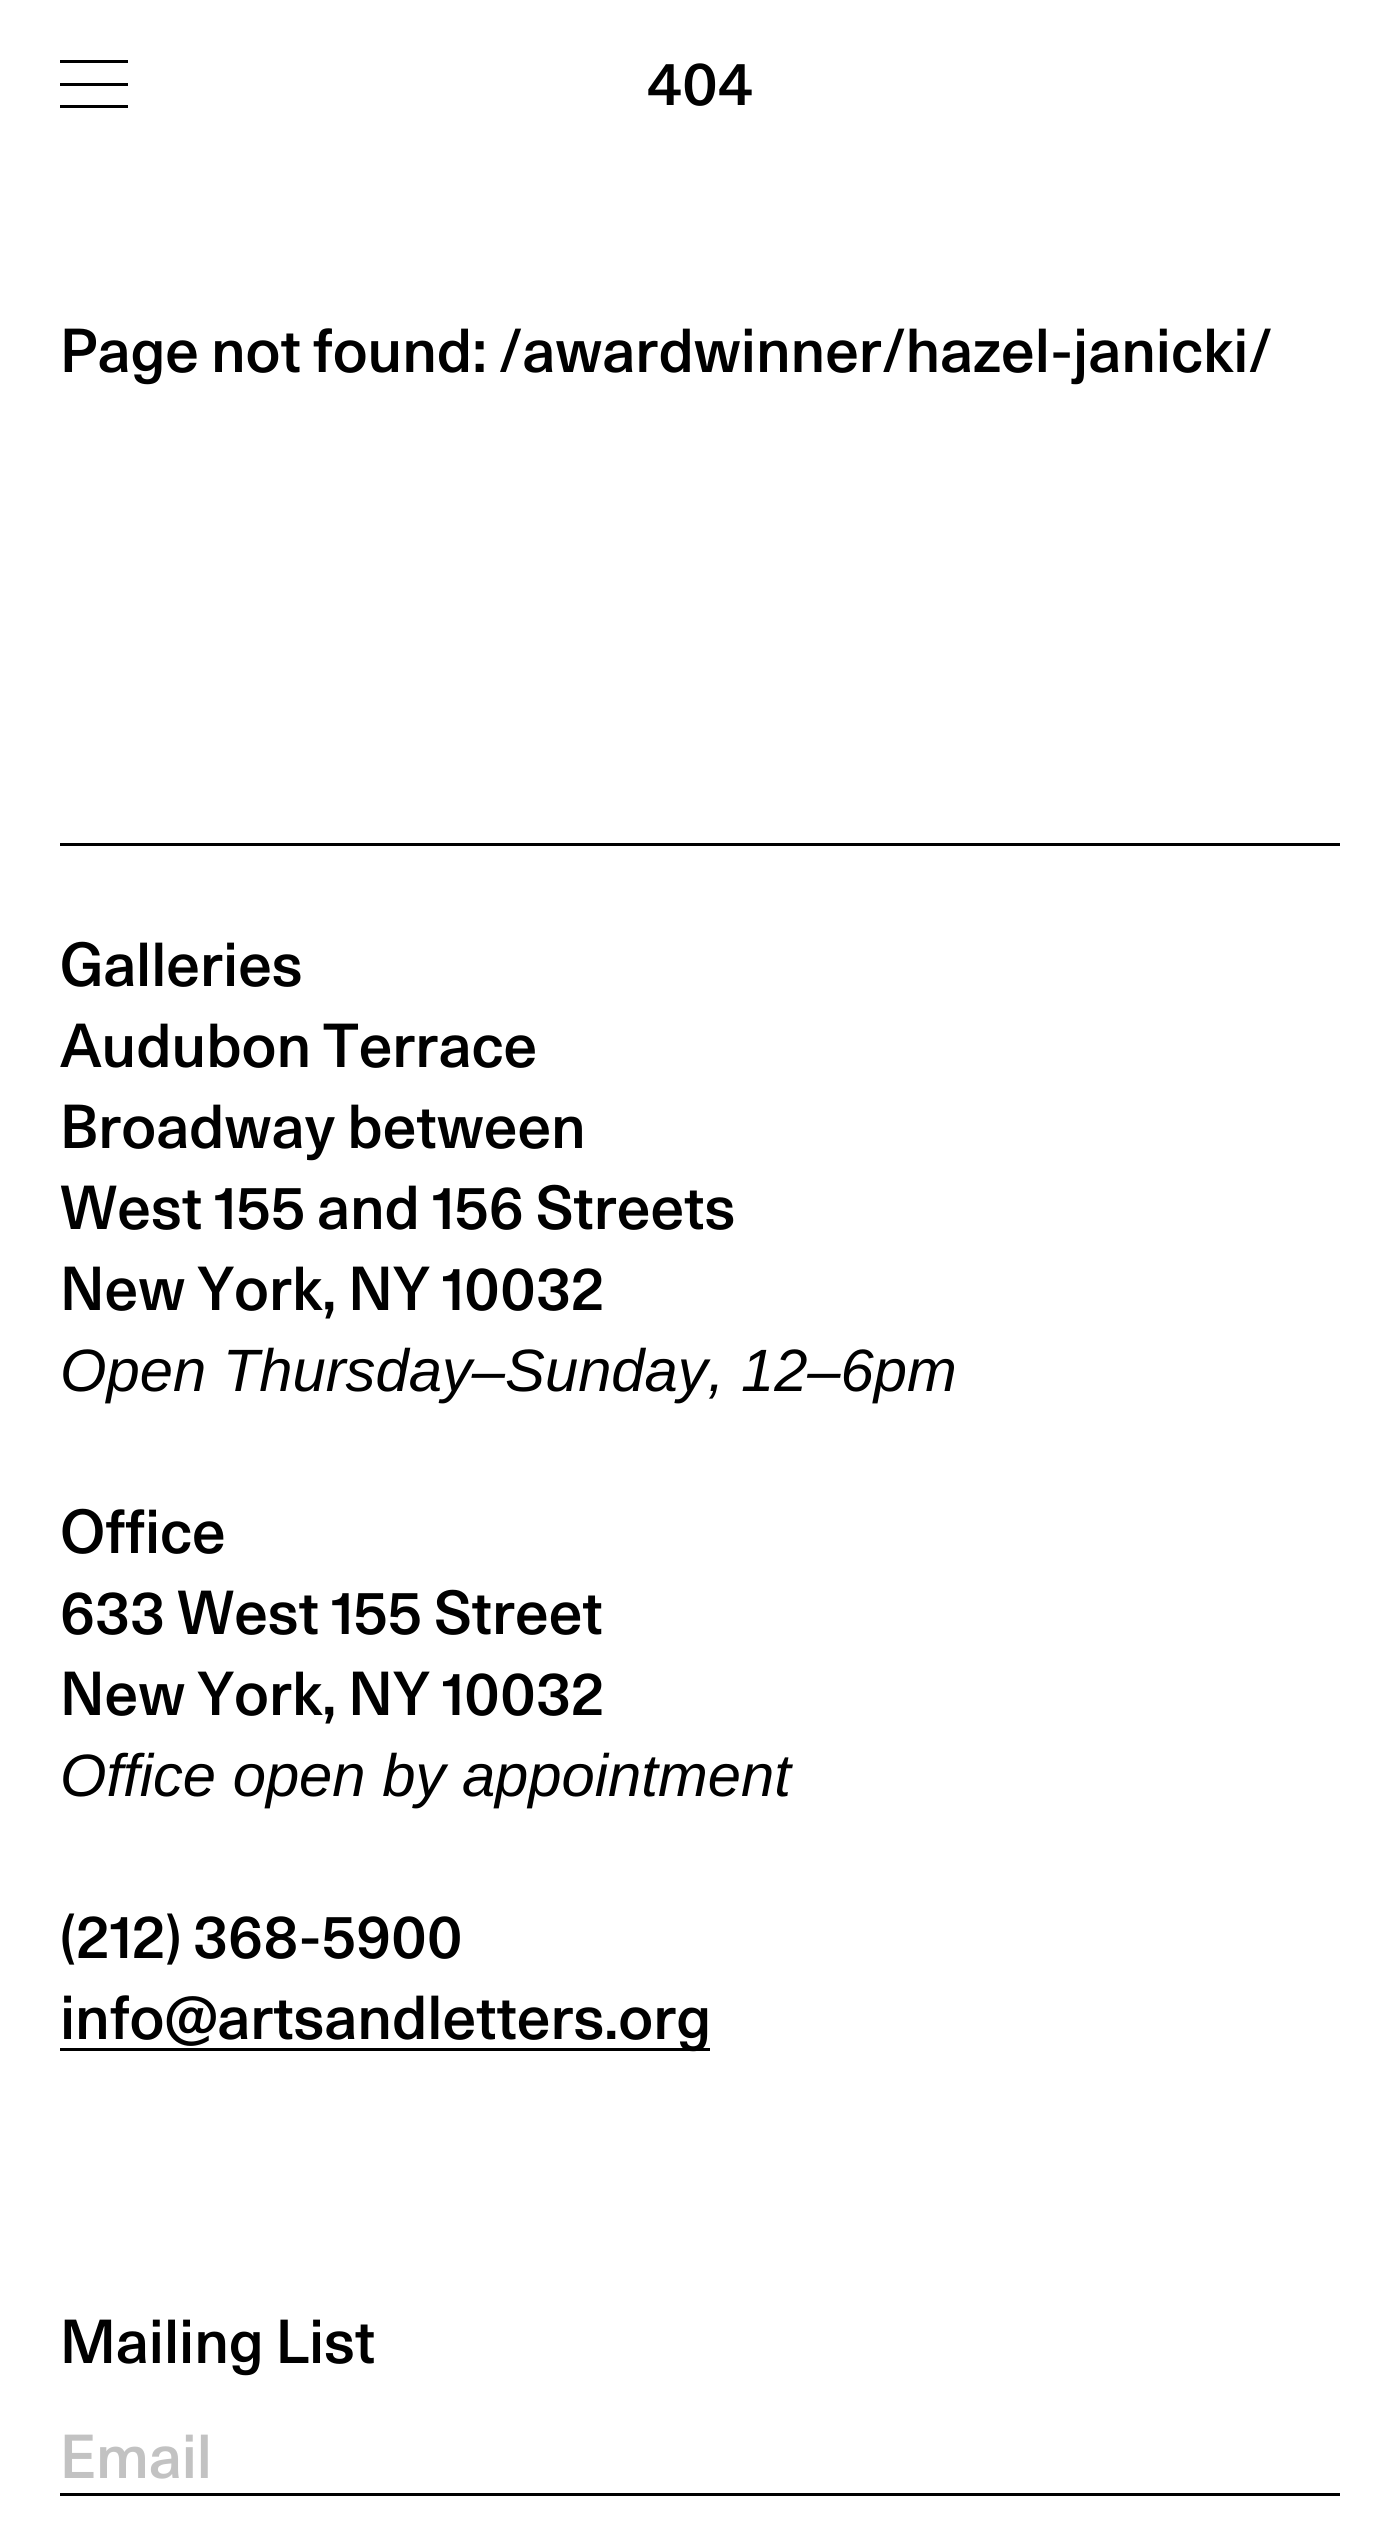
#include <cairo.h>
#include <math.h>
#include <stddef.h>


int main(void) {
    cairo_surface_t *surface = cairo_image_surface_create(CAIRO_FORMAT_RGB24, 1398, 2533);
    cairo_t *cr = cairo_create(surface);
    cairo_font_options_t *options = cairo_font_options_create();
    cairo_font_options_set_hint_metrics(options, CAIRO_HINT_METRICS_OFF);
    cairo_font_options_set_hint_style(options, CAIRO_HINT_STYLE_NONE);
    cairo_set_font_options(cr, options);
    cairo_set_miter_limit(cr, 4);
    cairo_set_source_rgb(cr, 1, 1, 1);
    cairo_paint(cr);
    cairo_set_source_rgb(cr, 0, 0, 0);
    cairo_rectangle(cr, 60, 60, 68, 3);
    cairo_fill(cr);
    cairo_rectangle(cr, 60, 83, 68, 3);
    cairo_fill(cr);
    cairo_rectangle(cr, 60, 105, 68, 3);
    cairo_fill(cr);
    cairo_select_font_face(cr, "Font", CAIRO_FONT_SLANT_NORMAL, CAIRO_FONT_WEIGHT_NORMAL);
    cairo_set_font_size(cr, 59.75);
    cairo_move_to(cr, 647, 105);
    cairo_show_text(cr, "404");
    cairo_move_to(cr, 60, 372);
    cairo_show_text(cr, "Page not found: /awardwinner/hazel-janicki/");
    cairo_rectangle(cr, 60, 843, 1280, 3);
    cairo_fill(cr);
    cairo_move_to(cr, 60, 986);
    cairo_show_text(cr, "Galleries");
    cairo_move_to(cr, 60, 1067);
    cairo_show_text(cr, "Audubon Terrace");
    cairo_move_to(cr, 60, 1148);
    cairo_show_text(cr, "Broadway between");
    cairo_move_to(cr, 60, 1229);
    cairo_show_text(cr, "West 155 and 156 Streets");
    cairo_move_to(cr, 60, 1310);
    cairo_show_text(cr, "New York, NY 10032");
    cairo_select_font_face(cr, "Liberation Sans", CAIRO_FONT_SLANT_ITALIC, CAIRO_FONT_WEIGHT_NORMAL);
    cairo_move_to(cr, 60, 1391);
    cairo_show_text(cr, "Open Thursday–Sunday, 12–6pm");
    cairo_select_font_face(cr, "Font", CAIRO_FONT_SLANT_NORMAL, CAIRO_FONT_WEIGHT_NORMAL);
    cairo_move_to(cr, 60, 1553);
    cairo_show_text(cr, "Office");
    cairo_move_to(cr, 60, 1634);
    cairo_show_text(cr, "633 West 155 Street");
    cairo_move_to(cr, 60, 1715);
    cairo_show_text(cr, "New York, NY 10032");
    cairo_select_font_face(cr, "Liberation Sans", CAIRO_FONT_SLANT_ITALIC, CAIRO_FONT_WEIGHT_NORMAL);
    cairo_move_to(cr, 60, 1796);
    cairo_show_text(cr, "Office open by appointment");
    cairo_select_font_face(cr, "Font", CAIRO_FONT_SLANT_NORMAL, CAIRO_FONT_WEIGHT_NORMAL);
    cairo_move_to(cr, 60, 1958);
    cairo_show_text(cr, "(212) 368-5900");
    cairo_rectangle(cr, 60, 2048, 650, 3);
    cairo_fill(cr);
    cairo_move_to(cr, 60, 2039);
    cairo_show_text(cr, "info@artsandletters.org");
    cairo_move_to(cr, 60, 2363);
    cairo_show_text(cr, "Mailing List");
    cairo_rectangle(cr, 60, 2493, 1280, 3);
    cairo_fill(cr);
    cairo_set_source_rgb(cr, 0.761, 0.761, 0.761);
    cairo_move_to(cr, 60, 2478);
    cairo_show_text(cr, "Email");
    cairo_surface_write_to_png(surface, "page.png");
    cairo_font_options_destroy(options);
    cairo_destroy(cr);
    cairo_surface_destroy(surface);
    return 0;
}
